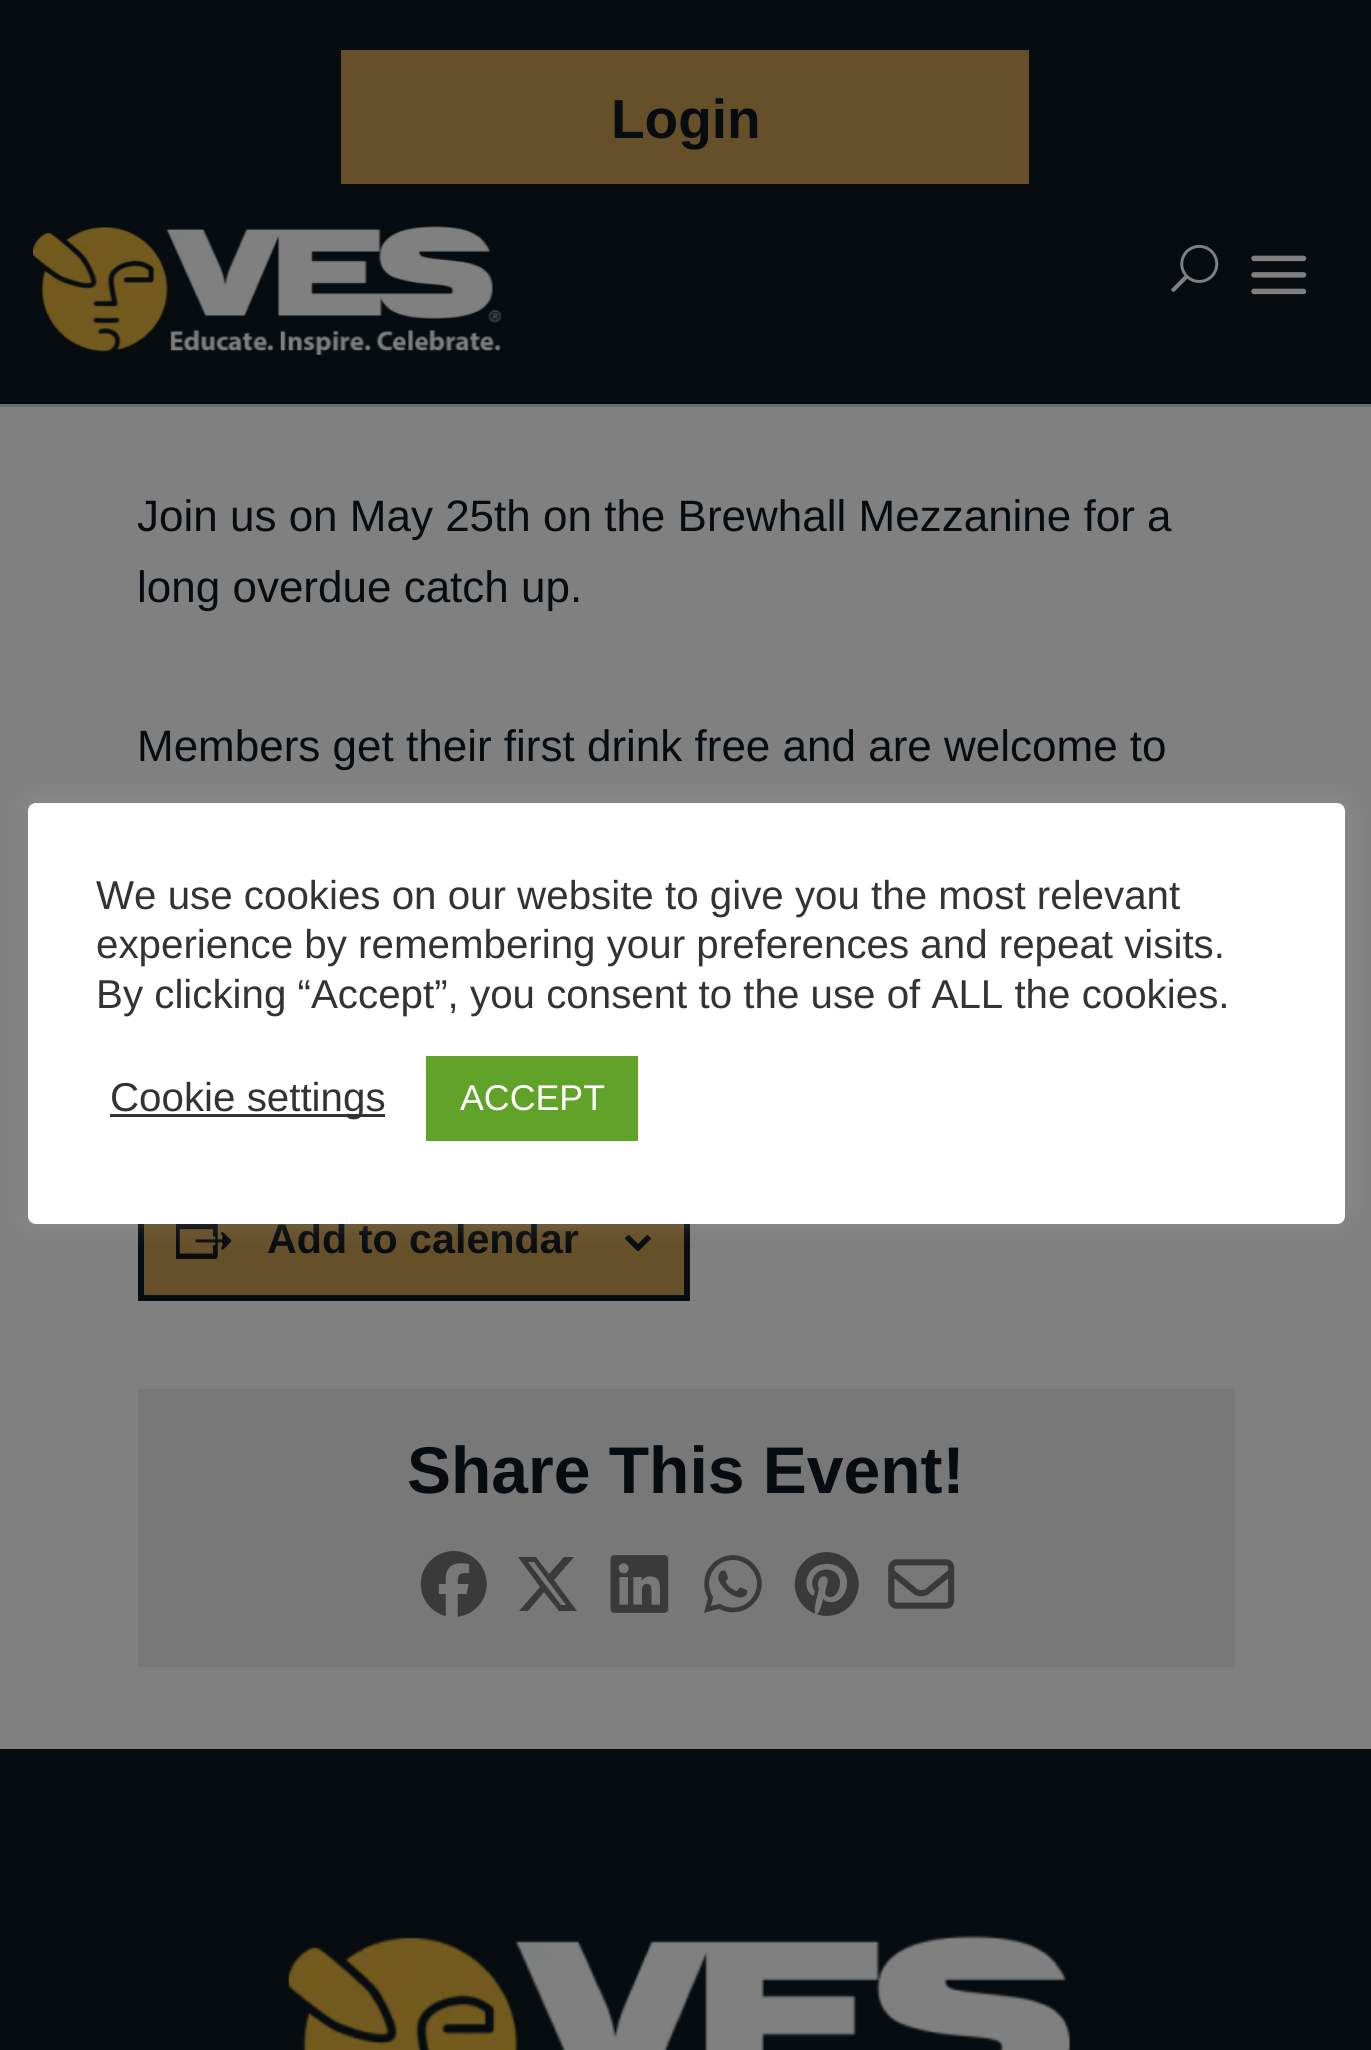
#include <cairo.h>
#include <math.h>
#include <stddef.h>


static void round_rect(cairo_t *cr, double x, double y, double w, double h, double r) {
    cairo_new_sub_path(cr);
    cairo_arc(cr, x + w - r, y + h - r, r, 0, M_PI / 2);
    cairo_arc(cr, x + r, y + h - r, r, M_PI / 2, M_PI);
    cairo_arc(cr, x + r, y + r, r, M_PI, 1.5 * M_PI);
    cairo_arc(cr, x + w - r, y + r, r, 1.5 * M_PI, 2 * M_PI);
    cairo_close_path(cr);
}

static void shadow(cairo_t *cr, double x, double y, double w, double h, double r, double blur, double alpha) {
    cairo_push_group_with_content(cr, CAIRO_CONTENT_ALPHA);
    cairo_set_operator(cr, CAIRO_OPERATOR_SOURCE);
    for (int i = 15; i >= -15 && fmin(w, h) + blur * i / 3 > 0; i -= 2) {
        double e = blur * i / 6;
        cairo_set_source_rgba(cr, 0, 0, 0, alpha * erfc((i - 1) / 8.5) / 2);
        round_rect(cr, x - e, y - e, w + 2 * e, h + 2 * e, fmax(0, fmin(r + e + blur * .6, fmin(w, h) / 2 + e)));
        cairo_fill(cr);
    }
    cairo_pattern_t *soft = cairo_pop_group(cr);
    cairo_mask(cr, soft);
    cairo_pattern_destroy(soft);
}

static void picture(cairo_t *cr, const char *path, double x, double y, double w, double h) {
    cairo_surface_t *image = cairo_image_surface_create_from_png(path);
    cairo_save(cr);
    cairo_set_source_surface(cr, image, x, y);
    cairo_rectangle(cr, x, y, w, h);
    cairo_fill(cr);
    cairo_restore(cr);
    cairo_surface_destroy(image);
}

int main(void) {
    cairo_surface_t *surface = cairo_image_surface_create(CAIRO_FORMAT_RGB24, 1371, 2050);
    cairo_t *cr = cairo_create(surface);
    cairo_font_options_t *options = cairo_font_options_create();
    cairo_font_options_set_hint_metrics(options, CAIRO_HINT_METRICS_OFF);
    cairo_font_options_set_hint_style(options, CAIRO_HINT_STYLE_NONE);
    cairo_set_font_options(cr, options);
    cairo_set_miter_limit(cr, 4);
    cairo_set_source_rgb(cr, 0.502, 0.502, 0.502);
    cairo_paint(cr);
    cairo_set_source_rgb(cr, 0.031, 0.047, 0.063);
    cairo_rectangle(cr, 0, 0, 1371, 404);
    cairo_fill(cr);
    cairo_set_source_rgb(cr, 0.424, 0.424, 0.424);
    cairo_rectangle(cr, 0, 404, 1371, 3);
    cairo_fill(cr);
    cairo_set_source_rgb(cr, 0.4, 0.314, 0.161);
    cairo_rectangle(cr, 341, 50, 688, 134);
    cairo_fill(cr);
    cairo_select_font_face(cr, "Liberation Sans", CAIRO_FONT_SLANT_NORMAL, CAIRO_FONT_WEIGHT_BOLD);
    cairo_set_font_size(cr, 55);
    cairo_set_source_rgb(cr, 0.031, 0.047, 0.063);
    cairo_move_to(cr, 611, 138);
    cairo_show_text(cr, "Login");
    picture(cr, "img1.png", 33, 226, 468, 129);
    picture(cr, "img2.png", 1171, 244, 48, 48);
    picture(cr, "img3.png", 1251, 255, 56, 40);
    cairo_select_font_face(cr, "Liberation Sans", CAIRO_FONT_SLANT_NORMAL, CAIRO_FONT_WEIGHT_NORMAL);
    cairo_set_font_size(cr, 44);
    cairo_move_to(cr, 137, 531);
    cairo_show_text(cr, "Join us on May 25th on the Brewhall Mezzanine for a");
    cairo_move_to(cr, 137, 602);
    cairo_show_text(cr, "long overdue catch up.");
    cairo_move_to(cr, 137, 761);
    cairo_show_text(cr, "Members get their first drink free and are welcome to");
    cairo_set_source_rgb(cr, 0.4, 0.314, 0.161);
    cairo_rectangle(cr, 144, 1224, 540, 71);
    cairo_fill(cr);
    cairo_rectangle(cr, 141, 1183, 546, 115);
    cairo_set_source_rgb(cr, 0.031, 0.047, 0.063);
    cairo_set_line_width(cr, 6);
    cairo_stroke(cr);
    picture(cr, "img4.png", 176, 1224, 56, 35);
    cairo_select_font_face(cr, "Liberation Sans", CAIRO_FONT_SLANT_NORMAL, CAIRO_FONT_WEIGHT_BOLD);
    cairo_set_font_size(cr, 41.25);
    cairo_move_to(cr, 267, 1253);
    cairo_show_text(cr, "Add to calendar");
    picture(cr, "img5.png", 624, 1235, 28, 16);
    cairo_set_source_rgb(cr, 0.471, 0.471, 0.471);
    cairo_rectangle(cr, 138, 1389, 1097, 278);
    cairo_fill(cr);
    cairo_set_font_size(cr, 66);
    cairo_set_source_rgb(cr, 0.031, 0.047, 0.063);
    cairo_move_to(cr, 407, 1493);
    cairo_show_text(cr, "Share This Event!");
    picture(cr, "img6.png", 420, 1551, 67, 66);
    cairo_set_source_rgb(cr, 0.227, 0.227, 0.227);
    cairo_new_path(cr);
    cairo_move_to(cr, 564, 1557);
    cairo_line_to(cr, 574, 1557);
    cairo_line_to(cr, 564, 1557);
    cairo_line_to(cr, 574, 1557);
    cairo_line_to(cr, 554, 1580);
    cairo_line_to(cr, 577, 1611);
    cairo_line_to(cr, 559, 1611);
    cairo_line_to(cr, 544, 1592);
    cairo_line_to(cr, 528, 1611);
    cairo_line_to(cr, 519, 1611);
    cairo_line_to(cr, 540, 1587);
    cairo_line_to(cr, 518, 1557);
    cairo_line_to(cr, 536, 1557);
    cairo_line_to(cr, 549, 1574);
    cairo_close_path(cr);
    cairo_move_to(cr, 561, 1605);
    cairo_line_to(cr, 566, 1605);
    cairo_line_to(cr, 561, 1605);
    cairo_line_to(cr, 566, 1605);
    cairo_line_to(cr, 534, 1562);
    cairo_line_to(cr, 528, 1562);
    cairo_close_path(cr);
    cairo_fill(cr);
    picture(cr, "img7.png", 610, 1555, 59, 58);
    picture(cr, "img8.png", 704, 1555, 58, 58);
    picture(cr, "img9.png", 794, 1552, 65, 64);
    picture(cr, "img10.png", 888, 1559, 67, 50);
    cairo_set_source_rgb(cr, 0.031, 0.047, 0.063);
    cairo_rectangle(cr, 0, 1749, 1371, 301);
    cairo_fill(cr);
    picture(cr, "img11.png", 288, 1935, 783, 115);
    cairo_set_source_rgb(cr, 0.675, 0.671, 0.671);
    shadow(cr, 28, 800, 1317, 421, 8, 14, 0.3);
    cairo_set_source_rgb(cr, 1, 1, 1);
    round_rect(cr, 28, 803, 1317, 421, 8);
    cairo_fill(cr);
    cairo_select_font_face(cr, "Liberation Sans", CAIRO_FONT_SLANT_NORMAL, CAIRO_FONT_WEIGHT_NORMAL);
    cairo_set_font_size(cr, 40.3);
    cairo_set_source_rgb(cr, 0.2, 0.2, 0.2);
    cairo_move_to(cr, 96, 909);
    cairo_show_text(cr, "We use cookies on our website to give you the most relevant");
    cairo_move_to(cr, 96, 958);
    cairo_show_text(cr, "experience by remembering your preferences and repeat visits.");
    cairo_move_to(cr, 96, 1008);
    cairo_show_text(cr, "By clicking “Accept”, you consent to the use of ALL the cookies.");
    cairo_rectangle(cr, 110, 1114, 275, 3);
    cairo_fill(cr);
    cairo_move_to(cr, 110, 1111);
    cairo_show_text(cr, "Cookie settings");
    cairo_set_source_rgb(cr, 0.38, 0.635, 0.161);
    cairo_rectangle(cr, 426, 1056, 212, 85);
    cairo_fill(cr);
    cairo_set_font_size(cr, 35.75);
    cairo_set_source_rgb(cr, 1, 1, 1);
    cairo_move_to(cr, 460, 1110);
    cairo_show_text(cr, "ACCEPT");
    cairo_surface_write_to_png(surface, "page.png");
    cairo_font_options_destroy(options);
    cairo_destroy(cr);
    cairo_surface_destroy(surface);
    return 0;
}
